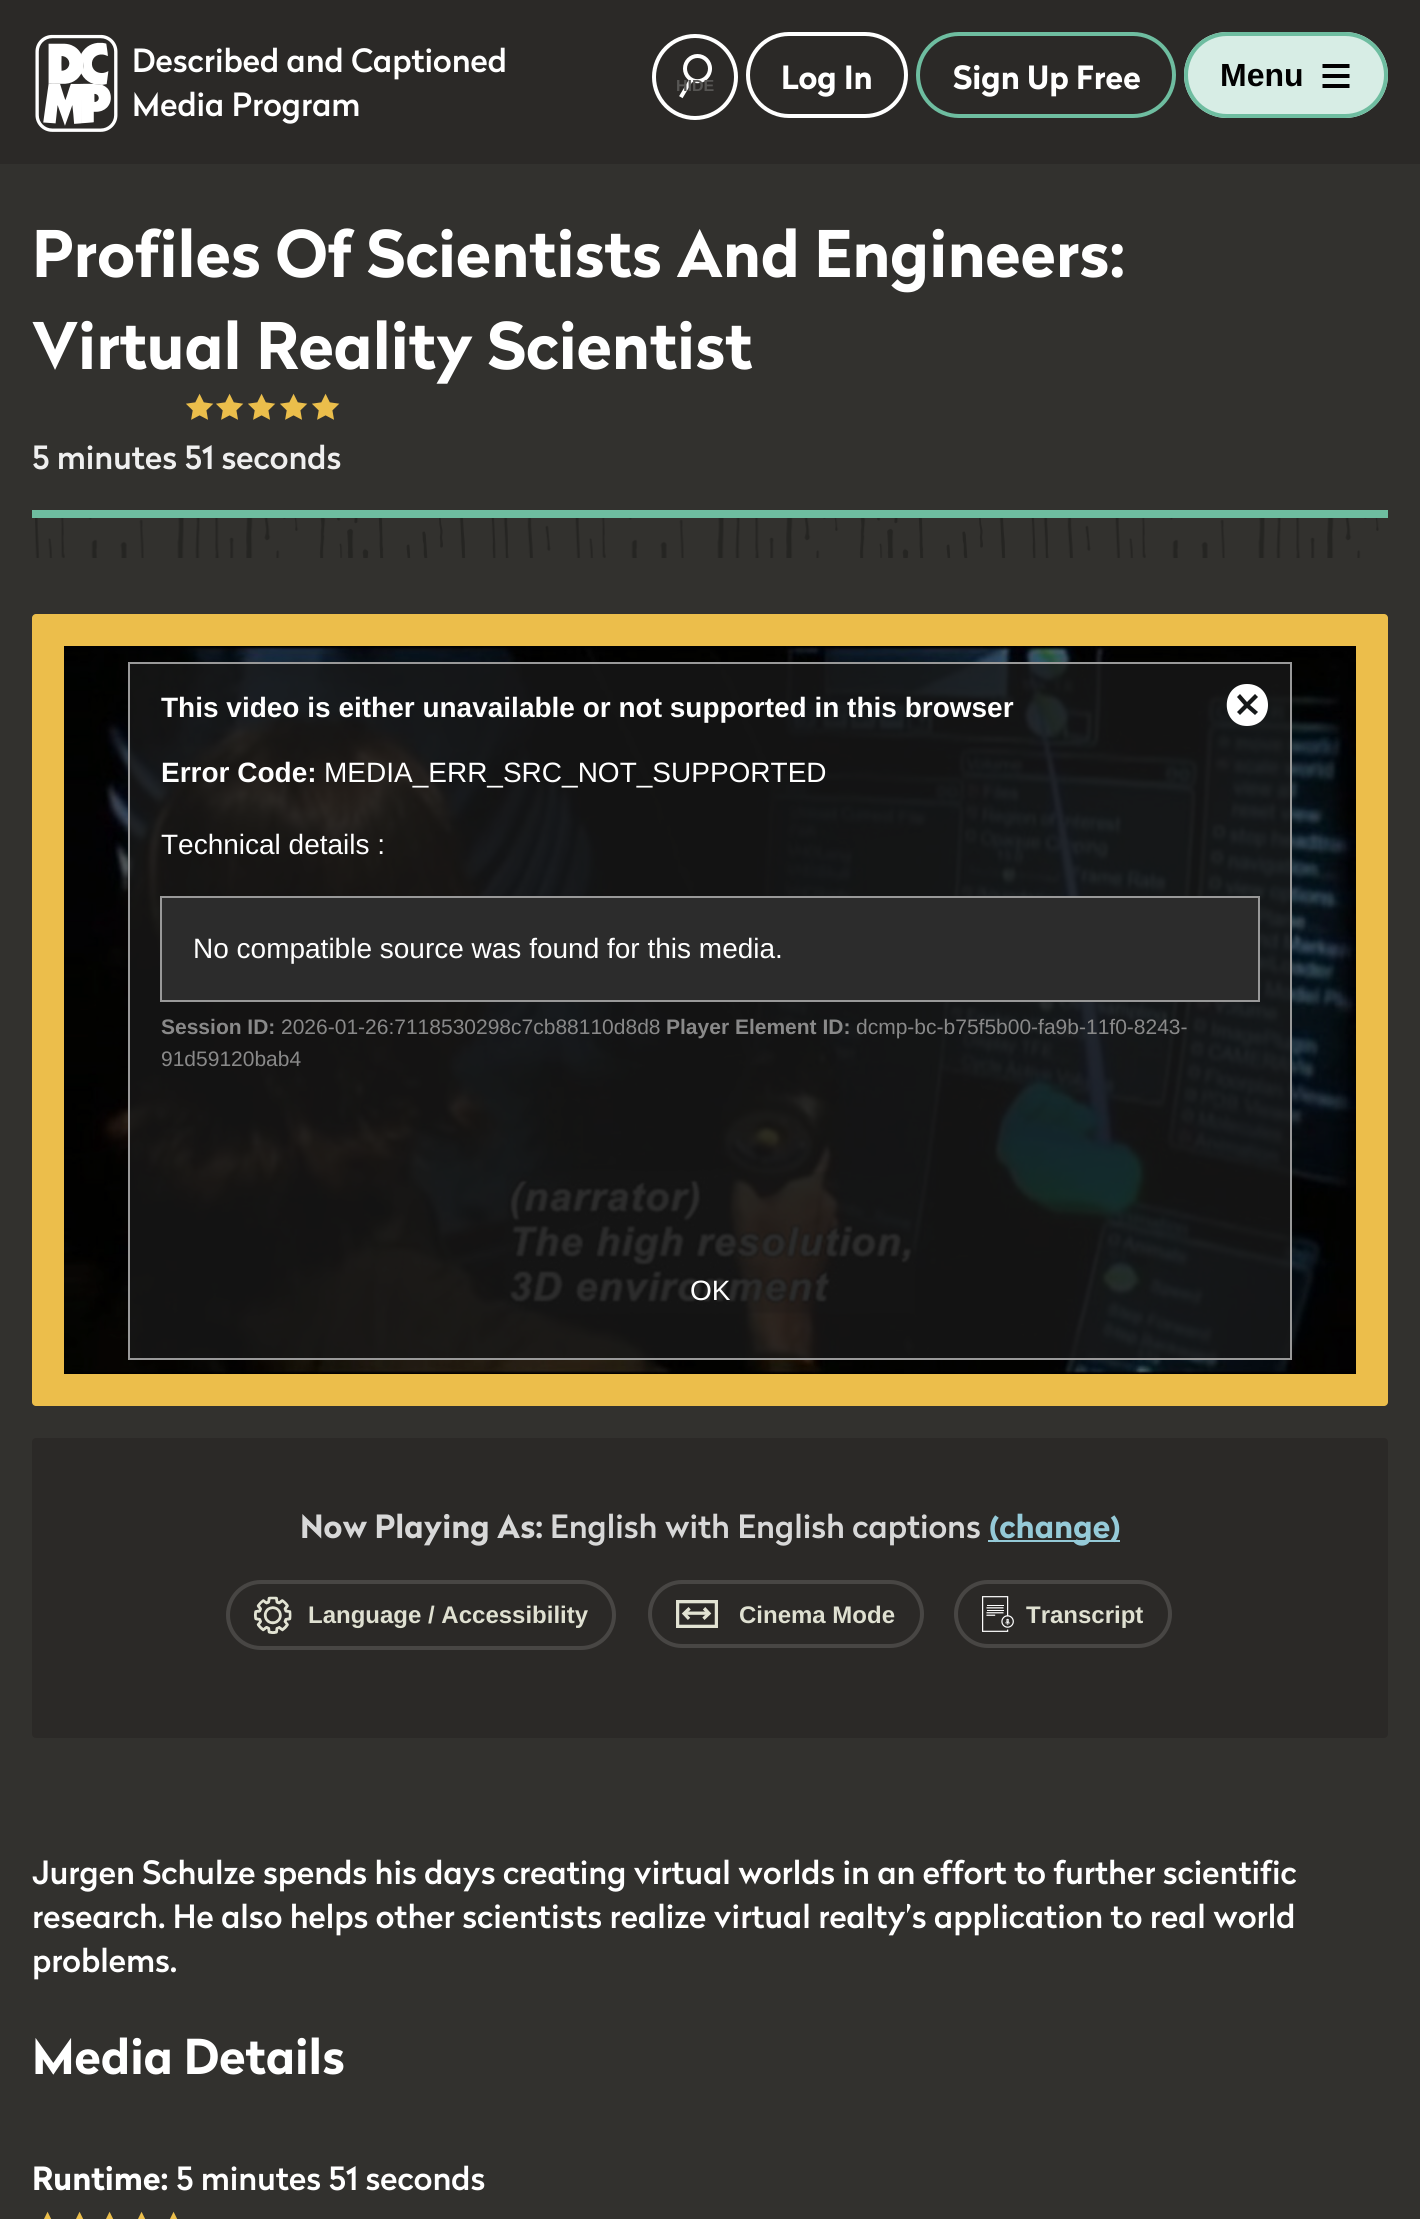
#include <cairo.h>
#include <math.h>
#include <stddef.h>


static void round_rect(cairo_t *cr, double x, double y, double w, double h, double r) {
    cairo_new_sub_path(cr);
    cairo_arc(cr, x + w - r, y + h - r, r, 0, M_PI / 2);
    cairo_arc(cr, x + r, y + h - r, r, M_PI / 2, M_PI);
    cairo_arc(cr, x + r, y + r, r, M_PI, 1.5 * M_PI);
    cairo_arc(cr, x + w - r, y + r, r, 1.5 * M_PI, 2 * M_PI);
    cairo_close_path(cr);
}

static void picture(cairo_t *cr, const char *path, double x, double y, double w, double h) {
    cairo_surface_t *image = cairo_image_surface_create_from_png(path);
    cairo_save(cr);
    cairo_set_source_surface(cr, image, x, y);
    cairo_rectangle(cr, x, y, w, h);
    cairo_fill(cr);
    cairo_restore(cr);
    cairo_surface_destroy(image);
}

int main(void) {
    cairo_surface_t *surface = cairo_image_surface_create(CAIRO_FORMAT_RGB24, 1420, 2219);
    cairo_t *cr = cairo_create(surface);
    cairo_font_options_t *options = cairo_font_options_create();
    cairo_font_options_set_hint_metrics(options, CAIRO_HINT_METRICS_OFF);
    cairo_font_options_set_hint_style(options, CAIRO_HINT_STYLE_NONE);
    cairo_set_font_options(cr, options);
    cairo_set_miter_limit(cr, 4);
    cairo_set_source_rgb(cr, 0.196, 0.192, 0.18);
    cairo_paint(cr);
    cairo_set_source_rgb(cr, 0.169, 0.161, 0.153);
    cairo_rectangle(cr, 0, 0, 1420, 164);
    cairo_fill(cr);
    picture(cr, "img1.png", 35, 34, 83, 98);
    cairo_select_font_face(cr, "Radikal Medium", CAIRO_FONT_SLANT_NORMAL, CAIRO_FONT_WEIGHT_NORMAL);
    cairo_set_font_size(cr, 32);
    cairo_set_source_rgb(cr, 1, 1, 1);
    cairo_move_to(cr, 132, 72);
    cairo_show_text(cr, "Described and Captioned");
    cairo_move_to(cr, 132, 116);
    cairo_show_text(cr, "Media Program");
    picture(cr, "img2.png", 679, 54, 33, 45);
    cairo_arc(cr, 695, 77, 41, 0, 2 * M_PI);
    cairo_set_line_width(cr, 4);
    cairo_stroke(cr);
    cairo_select_font_face(cr, "Liberation Sans", CAIRO_FONT_SLANT_NORMAL, CAIRO_FONT_WEIGHT_BOLD);
    cairo_set_font_size(cr, 16);
    cairo_set_source_rgb(cr, 0.341, 0.337, 0.329);
    cairo_move_to(cr, 676, 91);
    cairo_show_text(cr, "HIDE");
    round_rect(cr, 748, 34, 158, 82, 41);
    cairo_set_source_rgb(cr, 1, 1, 1);
    cairo_stroke(cr);
    cairo_select_font_face(cr, "Radikal", CAIRO_FONT_SLANT_NORMAL, CAIRO_FONT_WEIGHT_BOLD);
    cairo_set_font_size(cr, 32);
    cairo_move_to(cr, 781, 89);
    cairo_show_text(cr, "Log In");
    round_rect(cr, 918, 34, 256, 82, 41);
    cairo_set_source_rgb(cr, 0.431, 0.741, 0.627);
    cairo_stroke(cr);
    cairo_set_source_rgb(cr, 1, 1, 1);
    cairo_move_to(cr, 953, 89);
    cairo_show_text(cr, "Sign Up Free");
    cairo_set_source_rgb(cr, 0.843, 0.929, 0.898);
    round_rect(cr, 1184, 32, 204, 86, 43);
    cairo_fill(cr);
    cairo_new_path(cr);
    cairo_move_to(cr, 1322.5, 66);
    cairo_line_to(cr, 1349.5, 66);
    cairo_move_to(cr, 1322.5, 76);
    cairo_line_to(cr, 1349.5, 76);
    cairo_move_to(cr, 1322.5, 86);
    cairo_line_to(cr, 1349.5, 86);
    cairo_set_source_rgb(cr, 0, 0, 0);
    cairo_stroke(cr);
    round_rect(cr, 1186, 34, 200, 82, 41);
    cairo_set_source_rgb(cr, 0.431, 0.741, 0.627);
    cairo_stroke(cr);
    cairo_select_font_face(cr, "Liberation Sans", CAIRO_FONT_SLANT_NORMAL, CAIRO_FONT_WEIGHT_BOLD);
    cairo_set_source_rgb(cr, 0.004, 0.004, 0.004);
    cairo_move_to(cr, 1220, 86);
    cairo_show_text(cr, "Menu");
    cairo_set_source_rgb(cr, 0.431, 0.741, 0.627);
    cairo_rectangle(cr, 32, 510, 1356, 8);
    cairo_fill(cr);
    cairo_select_font_face(cr, "Radikal", CAIRO_FONT_SLANT_NORMAL, CAIRO_FONT_WEIGHT_BOLD);
    cairo_set_font_size(cr, 64);
    cairo_set_source_rgb(cr, 1, 1, 1);
    cairo_move_to(cr, 32, 277);
    cairo_show_text(cr, "Profiles Of Scientists And Engineers:");
    cairo_move_to(cr, 32, 369);
    cairo_show_text(cr, "Virtual Reality Scientist");
    picture(cr, "img3.png", 186, 393, 28, 27);
    picture(cr, "img3.png", 216, 393, 28, 27);
    picture(cr, "img3.png", 248, 393, 28, 27);
    picture(cr, "img3.png", 280, 393, 28, 27);
    picture(cr, "img3.png", 312, 393, 28, 27);
    cairo_select_font_face(cr, "Radikal Medium", CAIRO_FONT_SLANT_NORMAL, CAIRO_FONT_WEIGHT_NORMAL);
    cairo_set_font_size(cr, 32);
    cairo_set_source_rgb(cr, 0.937, 0.937, 0.937);
    cairo_move_to(cr, 32, 469);
    cairo_show_text(cr, "5 minutes 51 seconds");
    picture(cr, "img4.png", 35, 518, 1344, 40);
    cairo_set_source_rgb(cr, 0.922, 0.745, 0.294);
    round_rect(cr, 32, 614, 1356, 792, 4);
    cairo_fill(cr);
    picture(cr, "img5.png", 64, 646, 1292, 728);
    cairo_set_source_rgba(cr, 0.094, 0.094, 0.094, 0.8);
    cairo_rectangle(cr, 129, 663, 1162, 696);
    cairo_fill_preserve(cr);
    cairo_set_source_rgb(cr, 0.6, 0.6, 0.6);
    cairo_set_line_width(cr, 2);
    cairo_stroke(cr);
    cairo_select_font_face(cr, "Liberation Sans", CAIRO_FONT_SLANT_NORMAL, CAIRO_FONT_WEIGHT_BOLD);
    cairo_set_font_size(cr, 28);
    cairo_set_source_rgb(cr, 1, 1, 1);
    cairo_move_to(cr, 161, 717);
    cairo_show_text(cr, "This video is either unavailable or not supported in this browser");
    cairo_move_to(cr, 161, 782);
    cairo_show_text(cr, "Error Code:");
    cairo_select_font_face(cr, "Liberation Sans", CAIRO_FONT_SLANT_NORMAL, CAIRO_FONT_WEIGHT_NORMAL);
    cairo_move_to(cr, 324, 782);
    cairo_show_text(cr, "MEDIA_ERR_SRC_NOT_SUPPORTED");
    cairo_move_to(cr, 161, 854);
    cairo_show_text(cr, "Technical details :");
    cairo_set_source_rgb(cr, 0.173, 0.173, 0.173);
    cairo_rectangle(cr, 161, 897, 1098, 104);
    cairo_fill_preserve(cr);
    cairo_set_source_rgb(cr, 0.6, 0.6, 0.6);
    cairo_stroke(cr);
    cairo_set_source_rgb(cr, 1, 1, 1);
    cairo_move_to(cr, 193, 958);
    cairo_show_text(cr, "No compatible source was found for this media.");
    cairo_select_font_face(cr, "Liberation Sans", CAIRO_FONT_SLANT_NORMAL, CAIRO_FONT_WEIGHT_BOLD);
    cairo_set_font_size(cr, 21);
    cairo_set_source_rgb(cr, 0.537, 0.537, 0.537);
    cairo_move_to(cr, 161, 1034);
    cairo_show_text(cr, "Session ID:");
    cairo_select_font_face(cr, "Liberation Sans", CAIRO_FONT_SLANT_NORMAL, CAIRO_FONT_WEIGHT_NORMAL);
    cairo_move_to(cr, 281, 1034);
    cairo_show_text(cr, "2026-01-26:7118530298c7cb88110d8d8");
    cairo_select_font_face(cr, "Liberation Sans", CAIRO_FONT_SLANT_NORMAL, CAIRO_FONT_WEIGHT_BOLD);
    cairo_move_to(cr, 666, 1034);
    cairo_show_text(cr, "Player Element ID:");
    cairo_select_font_face(cr, "Liberation Sans", CAIRO_FONT_SLANT_NORMAL, CAIRO_FONT_WEIGHT_NORMAL);
    cairo_move_to(cr, 856, 1034);
    cairo_show_text(cr, "dcmp-bc-b75f5b00-fa9b-11f0-8243-");
    cairo_move_to(cr, 161, 1066);
    cairo_show_text(cr, "91d59120bab4");
    cairo_set_source_rgb(cr, 1, 1, 1);
    cairo_new_path(cr);
    cairo_move_to(cr, 1247, 684);
    cairo_curve_to(cr, 1220, 684, 1220, 726, 1247, 726);
    cairo_curve_to(cr, 1275, 726, 1275, 684, 1247, 684);
    cairo_close_path(cr);
    cairo_move_to(cr, 1258, 712);
    cairo_line_to(cr, 1255, 715);
    cairo_line_to(cr, 1247, 708);
    cairo_line_to(cr, 1240, 715);
    cairo_line_to(cr, 1237, 712);
    cairo_line_to(cr, 1244, 705);
    cairo_line_to(cr, 1237, 697);
    cairo_line_to(cr, 1240, 694);
    cairo_line_to(cr, 1247, 702);
    cairo_line_to(cr, 1255, 694);
    cairo_line_to(cr, 1258, 697);
    cairo_line_to(cr, 1250, 705);
    cairo_close_path(cr);
    cairo_fill(cr);
    cairo_set_font_size(cr, 28);
    cairo_move_to(cr, 690, 1300);
    cairo_show_text(cr, "OK");
    cairo_set_source_rgb(cr, 0.169, 0.161, 0.153);
    round_rect(cr, 32, 1438, 1356, 300, 4);
    cairo_fill(cr);
    cairo_select_font_face(cr, "Radikal", CAIRO_FONT_SLANT_NORMAL, CAIRO_FONT_WEIGHT_BOLD);
    cairo_set_font_size(cr, 32);
    cairo_set_source_rgb(cr, 0.847, 0.847, 0.847);
    cairo_move_to(cr, 300, 1538);
    cairo_show_text(cr, "Now Playing As:");
    cairo_select_font_face(cr, "Radikal Medium", CAIRO_FONT_SLANT_NORMAL, CAIRO_FONT_WEIGHT_NORMAL);
    cairo_move_to(cr, 550, 1538);
    cairo_show_text(cr, "English with English captions");
    cairo_set_source_rgb(cr, 0.584, 0.792, 0.847);
    cairo_rectangle(cr, 988, 1540, 132, 2);
    cairo_fill(cr);
    cairo_select_font_face(cr, "Radikal", CAIRO_FONT_SLANT_NORMAL, CAIRO_FONT_WEIGHT_BOLD);
    cairo_move_to(cr, 989, 1538);
    cairo_show_text(cr, "(change)");
    round_rect(cr, 228, 1582, 386, 66, 33);
    cairo_set_source_rgb(cr, 0.282, 0.275, 0.267);
    cairo_set_line_width(cr, 4);
    cairo_stroke(cr);
    picture(cr, "img6.png", 254, 1596, 38, 38);
    cairo_select_font_face(cr, "Liberation Sans", CAIRO_FONT_SLANT_NORMAL, CAIRO_FONT_WEIGHT_BOLD);
    cairo_set_font_size(cr, 24);
    cairo_set_source_rgb(cr, 0.875, 0.878, 0.82);
    cairo_move_to(cr, 308, 1623);
    cairo_show_text(cr, "Language / Accessibility");
    round_rect(cr, 650, 1582, 272, 64, 32);
    cairo_set_source_rgb(cr, 0.282, 0.275, 0.267);
    cairo_stroke(cr);
    picture(cr, "img7.png", 676, 1600, 42, 28);
    cairo_set_source_rgb(cr, 0.875, 0.878, 0.82);
    cairo_move_to(cr, 739, 1623);
    cairo_show_text(cr, "Cinema Mode");
    round_rect(cr, 956, 1582, 214, 64, 32);
    cairo_set_source_rgb(cr, 0.282, 0.275, 0.267);
    cairo_stroke(cr);
    picture(cr, "img8.png", 982, 1596, 32, 36);
    cairo_set_source_rgb(cr, 0.875, 0.878, 0.82);
    cairo_move_to(cr, 1026, 1623);
    cairo_show_text(cr, "Transcript");
    cairo_select_font_face(cr, "Radikal Medium", CAIRO_FONT_SLANT_NORMAL, CAIRO_FONT_WEIGHT_NORMAL);
    cairo_set_font_size(cr, 32);
    cairo_set_source_rgb(cr, 1, 1, 1);
    cairo_move_to(cr, 32, 1884);
    cairo_show_text(cr, "Jurgen Schulze spends his days creating virtual worlds in an effort to further scientific");
    cairo_move_to(cr, 32, 1928);
    cairo_show_text(cr, "research. He also helps other scientists realize virtual realty’s application to real world");
    cairo_move_to(cr, 32, 1972);
    cairo_show_text(cr, "problems.");
    cairo_select_font_face(cr, "Radikal", CAIRO_FONT_SLANT_NORMAL, CAIRO_FONT_WEIGHT_BOLD);
    cairo_set_font_size(cr, 48);
    cairo_move_to(cr, 32, 2074);
    cairo_show_text(cr, "Media Details");
    cairo_set_font_size(cr, 32);
    cairo_move_to(cr, 32, 2190);
    cairo_show_text(cr, "Runtime:");
    cairo_select_font_face(cr, "Radikal Medium", CAIRO_FONT_SLANT_NORMAL, CAIRO_FONT_WEIGHT_NORMAL);
    cairo_move_to(cr, 176, 2190);
    cairo_show_text(cr, "5 minutes 51 seconds");
    picture(cr, "img9.png", 44, 2211, 8, 8);
    picture(cr, "img9.png", 76, 2211, 8, 8);
    picture(cr, "img9.png", 106, 2211, 8, 8);
    picture(cr, "img9.png", 138, 2211, 8, 8);
    picture(cr, "img9.png", 170, 2211, 8, 8);
    cairo_surface_write_to_png(surface, "page.png");
    cairo_font_options_destroy(options);
    cairo_destroy(cr);
    cairo_surface_destroy(surface);
    return 0;
}
